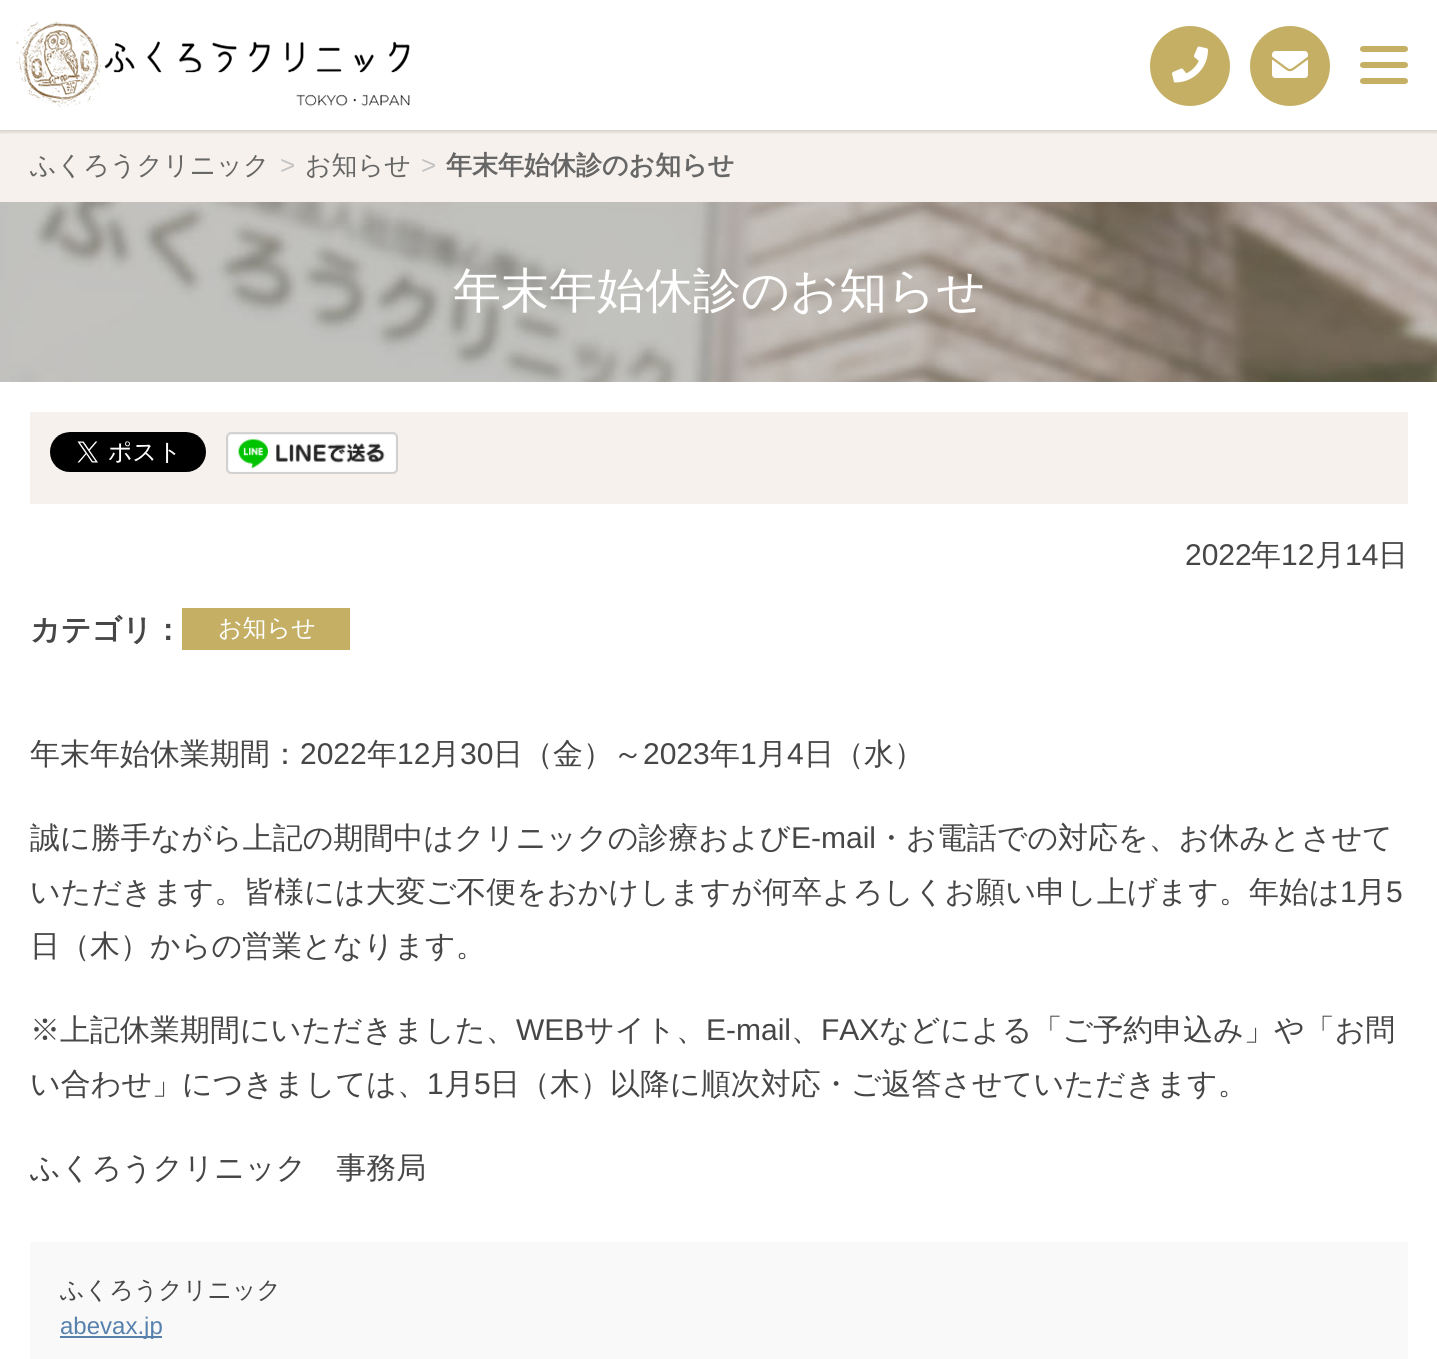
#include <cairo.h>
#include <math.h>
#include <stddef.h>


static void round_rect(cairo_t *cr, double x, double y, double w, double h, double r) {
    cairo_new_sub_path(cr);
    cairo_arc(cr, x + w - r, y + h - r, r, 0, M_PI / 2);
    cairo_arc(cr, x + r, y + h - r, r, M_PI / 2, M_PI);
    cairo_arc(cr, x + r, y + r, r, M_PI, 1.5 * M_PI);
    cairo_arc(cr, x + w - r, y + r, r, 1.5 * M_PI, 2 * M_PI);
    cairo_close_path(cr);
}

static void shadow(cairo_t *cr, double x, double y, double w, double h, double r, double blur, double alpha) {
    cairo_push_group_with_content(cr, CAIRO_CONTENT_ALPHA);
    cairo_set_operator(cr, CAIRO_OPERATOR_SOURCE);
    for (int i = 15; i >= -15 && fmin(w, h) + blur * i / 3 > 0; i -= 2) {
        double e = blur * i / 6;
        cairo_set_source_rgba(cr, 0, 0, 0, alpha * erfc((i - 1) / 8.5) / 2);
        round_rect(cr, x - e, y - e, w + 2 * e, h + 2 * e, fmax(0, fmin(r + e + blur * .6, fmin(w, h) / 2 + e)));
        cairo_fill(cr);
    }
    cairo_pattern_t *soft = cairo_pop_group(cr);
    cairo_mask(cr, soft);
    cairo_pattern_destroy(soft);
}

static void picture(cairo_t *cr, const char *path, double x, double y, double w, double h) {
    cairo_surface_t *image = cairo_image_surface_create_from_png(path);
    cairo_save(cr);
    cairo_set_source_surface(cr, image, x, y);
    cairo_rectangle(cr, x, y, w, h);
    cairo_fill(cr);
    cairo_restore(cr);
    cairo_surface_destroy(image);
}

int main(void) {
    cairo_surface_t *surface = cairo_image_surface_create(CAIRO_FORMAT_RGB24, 1437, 1359);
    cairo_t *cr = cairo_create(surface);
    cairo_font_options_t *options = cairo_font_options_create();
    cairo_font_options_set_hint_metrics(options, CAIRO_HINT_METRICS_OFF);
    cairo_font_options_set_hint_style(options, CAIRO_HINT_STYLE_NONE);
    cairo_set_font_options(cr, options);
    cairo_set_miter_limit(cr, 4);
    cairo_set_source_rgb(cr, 1, 1, 1);
    cairo_paint(cr);
    cairo_set_source_rgb(cr, 0.961, 0.945, 0.922);
    cairo_rectangle(cr, 0, 130, 1437, 72);
    cairo_fill(cr);
    cairo_save(cr);
    cairo_rectangle(cr, 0, 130, 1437, 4);
    cairo_clip(cr);
    cairo_set_source_rgb(cr, 0, 0, 0);
    shadow(cr, 0, 2, 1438, 130, 0, 2, 0.15);
    cairo_restore(cr);
    picture(cr, "img1.png", 16, 22, 394, 85);
    cairo_set_source_rgb(cr, 0.769, 0.686, 0.392);
    cairo_arc(cr, 1190, 66, 40, 0, 2 * M_PI);
    cairo_fill(cr);
    picture(cr, "img2.png", 1172, 46, 36, 37);
    cairo_arc(cr, 1290, 66, 40, 0, 2 * M_PI);
    cairo_fill(cr);
    picture(cr, "img3.png", 1272, 51, 36, 27);
    round_rect(cr, 1360, 46, 48, 6, 3);
    cairo_fill(cr);
    round_rect(cr, 1360, 62, 48, 6, 3);
    cairo_fill(cr);
    round_rect(cr, 1360, 78, 48, 6, 3);
    cairo_fill(cr);
    cairo_select_font_face(cr, "WenQuanYi Zen Hei Medium", CAIRO_FONT_SLANT_NORMAL, CAIRO_FONT_WEIGHT_NORMAL);
    cairo_set_font_size(cr, 26);
    cairo_set_source_rgb(cr, 0.4, 0.4, 0.4);
    cairo_move_to(cr, 30, 174);
    cairo_show_text(cr, "ふくろうクリニック");
    cairo_select_font_face(cr, "Liberation Sans", CAIRO_FONT_SLANT_NORMAL, CAIRO_FONT_WEIGHT_NORMAL);
    cairo_set_source_rgb(cr, 0.765, 0.765, 0.765);
    cairo_move_to(cr, 280, 174);
    cairo_show_text(cr, ">");
    cairo_select_font_face(cr, "WenQuanYi Zen Hei Medium", CAIRO_FONT_SLANT_NORMAL, CAIRO_FONT_WEIGHT_NORMAL);
    cairo_set_source_rgb(cr, 0.4, 0.4, 0.4);
    cairo_move_to(cr, 305, 174);
    cairo_show_text(cr, "お知らせ");
    cairo_select_font_face(cr, "Liberation Sans", CAIRO_FONT_SLANT_NORMAL, CAIRO_FONT_WEIGHT_NORMAL);
    cairo_set_source_rgb(cr, 0.765, 0.765, 0.765);
    cairo_move_to(cr, 421, 174);
    cairo_show_text(cr, ">");
    cairo_select_font_face(cr, "WenQuanYi Zen Hei", CAIRO_FONT_SLANT_NORMAL, CAIRO_FONT_WEIGHT_BOLD);
    cairo_set_source_rgb(cr, 0.4, 0.4, 0.4);
    cairo_move_to(cr, 446, 174);
    cairo_show_text(cr, "年末年始休診のお知らせ");
    picture(cr, "img4.png", 0, 202, 1437, 180);
    cairo_select_font_face(cr, "WenQuanYi Zen Hei Medium", CAIRO_FONT_SLANT_NORMAL, CAIRO_FONT_WEIGHT_NORMAL);
    cairo_set_font_size(cr, 48);
    cairo_set_source_rgb(cr, 1, 1, 1);
    cairo_move_to(cr, 453, 307);
    cairo_show_text(cr, "年末年始休診のお知らせ");
    cairo_set_source_rgb(cr, 0.961, 0.945, 0.922);
    cairo_rectangle(cr, 30, 412, 1378, 92);
    cairo_fill(cr);
    picture(cr, "img5.png", 50, 432, 156, 40);
    picture(cr, "img6.png", 226, 432, 172, 42);
    cairo_select_font_face(cr, "Liberation Sans", CAIRO_FONT_SLANT_NORMAL, CAIRO_FONT_WEIGHT_NORMAL);
    cairo_set_font_size(cr, 30);
    cairo_set_source_rgb(cr, 0.275, 0.275, 0.275);
    cairo_move_to(cr, 1185, 565);
    cairo_show_text(cr, "2022");
    cairo_select_font_face(cr, "WenQuanYi Zen Hei Medium", CAIRO_FONT_SLANT_NORMAL, CAIRO_FONT_WEIGHT_NORMAL);
    cairo_move_to(cr, 1251, 565);
    cairo_show_text(cr, "年");
    cairo_select_font_face(cr, "Liberation Sans", CAIRO_FONT_SLANT_NORMAL, CAIRO_FONT_WEIGHT_NORMAL);
    cairo_move_to(cr, 1281, 565);
    cairo_show_text(cr, "12");
    cairo_select_font_face(cr, "WenQuanYi Zen Hei Medium", CAIRO_FONT_SLANT_NORMAL, CAIRO_FONT_WEIGHT_NORMAL);
    cairo_move_to(cr, 1315, 565);
    cairo_show_text(cr, "月");
    cairo_select_font_face(cr, "Liberation Sans", CAIRO_FONT_SLANT_NORMAL, CAIRO_FONT_WEIGHT_NORMAL);
    cairo_move_to(cr, 1345, 565);
    cairo_show_text(cr, "14");
    cairo_select_font_face(cr, "WenQuanYi Zen Hei Medium", CAIRO_FONT_SLANT_NORMAL, CAIRO_FONT_WEIGHT_NORMAL);
    cairo_move_to(cr, 1378, 565);
    cairo_show_text(cr, "日");
    cairo_select_font_face(cr, "WenQuanYi Zen Hei", CAIRO_FONT_SLANT_NORMAL, CAIRO_FONT_WEIGHT_BOLD);
    cairo_move_to(cr, 30, 640);
    cairo_show_text(cr, "カテゴリ：");
    cairo_set_source_rgb(cr, 0.769, 0.686, 0.392);
    cairo_rectangle(cr, 182, 608, 168, 42);
    cairo_fill(cr);
    cairo_select_font_face(cr, "WenQuanYi Zen Hei Medium", CAIRO_FONT_SLANT_NORMAL, CAIRO_FONT_WEIGHT_NORMAL);
    cairo_set_font_size(cr, 24);
    cairo_set_source_rgb(cr, 1, 1, 1);
    cairo_move_to(cr, 218, 636);
    cairo_show_text(cr, "お知らせ");
    cairo_set_font_size(cr, 30);
    cairo_set_source_rgb(cr, 0.275, 0.275, 0.275);
    cairo_move_to(cr, 30, 764);
    cairo_show_text(cr, "年末年始休業期間：");
    cairo_select_font_face(cr, "Liberation Sans", CAIRO_FONT_SLANT_NORMAL, CAIRO_FONT_WEIGHT_NORMAL);
    cairo_move_to(cr, 300, 764);
    cairo_show_text(cr, "2022");
    cairo_select_font_face(cr, "WenQuanYi Zen Hei Medium", CAIRO_FONT_SLANT_NORMAL, CAIRO_FONT_WEIGHT_NORMAL);
    cairo_move_to(cr, 367, 764);
    cairo_show_text(cr, "年");
    cairo_select_font_face(cr, "Liberation Sans", CAIRO_FONT_SLANT_NORMAL, CAIRO_FONT_WEIGHT_NORMAL);
    cairo_move_to(cr, 397, 764);
    cairo_show_text(cr, "12");
    cairo_select_font_face(cr, "WenQuanYi Zen Hei Medium", CAIRO_FONT_SLANT_NORMAL, CAIRO_FONT_WEIGHT_NORMAL);
    cairo_move_to(cr, 430, 764);
    cairo_show_text(cr, "月");
    cairo_select_font_face(cr, "Liberation Sans", CAIRO_FONT_SLANT_NORMAL, CAIRO_FONT_WEIGHT_NORMAL);
    cairo_move_to(cr, 460, 764);
    cairo_show_text(cr, "30");
    cairo_select_font_face(cr, "WenQuanYi Zen Hei Medium", CAIRO_FONT_SLANT_NORMAL, CAIRO_FONT_WEIGHT_NORMAL);
    cairo_move_to(cr, 493, 764);
    cairo_show_text(cr, "日（金）～");
    cairo_select_font_face(cr, "Liberation Sans", CAIRO_FONT_SLANT_NORMAL, CAIRO_FONT_WEIGHT_NORMAL);
    cairo_move_to(cr, 643, 764);
    cairo_show_text(cr, "2023");
    cairo_select_font_face(cr, "WenQuanYi Zen Hei Medium", CAIRO_FONT_SLANT_NORMAL, CAIRO_FONT_WEIGHT_NORMAL);
    cairo_move_to(cr, 710, 764);
    cairo_show_text(cr, "年");
    cairo_select_font_face(cr, "Liberation Sans", CAIRO_FONT_SLANT_NORMAL, CAIRO_FONT_WEIGHT_NORMAL);
    cairo_move_to(cr, 740, 764);
    cairo_show_text(cr, "1");
    cairo_select_font_face(cr, "WenQuanYi Zen Hei Medium", CAIRO_FONT_SLANT_NORMAL, CAIRO_FONT_WEIGHT_NORMAL);
    cairo_move_to(cr, 757, 764);
    cairo_show_text(cr, "月");
    cairo_select_font_face(cr, "Liberation Sans", CAIRO_FONT_SLANT_NORMAL, CAIRO_FONT_WEIGHT_NORMAL);
    cairo_move_to(cr, 787, 764);
    cairo_show_text(cr, "4");
    cairo_select_font_face(cr, "WenQuanYi Zen Hei Medium", CAIRO_FONT_SLANT_NORMAL, CAIRO_FONT_WEIGHT_NORMAL);
    cairo_move_to(cr, 804, 764);
    cairo_show_text(cr, "日（水）");
    cairo_move_to(cr, 30, 848);
    cairo_show_text(cr, "誠に勝手ながら上記の期間中はクリニックの診療および");
    cairo_select_font_face(cr, "Liberation Sans", CAIRO_FONT_SLANT_NORMAL, CAIRO_FONT_WEIGHT_NORMAL);
    cairo_move_to(cr, 791, 848);
    cairo_show_text(cr, "E-mail");
    cairo_select_font_face(cr, "WenQuanYi Zen Hei Medium", CAIRO_FONT_SLANT_NORMAL, CAIRO_FONT_WEIGHT_NORMAL);
    cairo_move_to(cr, 876, 848);
    cairo_show_text(cr, "・お電話での対応を、お休みとさせて");
    cairo_move_to(cr, 30, 902);
    cairo_show_text(cr, "いただきます。皆様には大変ご不便をおかけしますが何卒よろしくお願い申し上げます。年始は");
    cairo_select_font_face(cr, "Liberation Sans", CAIRO_FONT_SLANT_NORMAL, CAIRO_FONT_WEIGHT_NORMAL);
    cairo_move_to(cr, 1340, 902);
    cairo_show_text(cr, "1");
    cairo_select_font_face(cr, "WenQuanYi Zen Hei Medium", CAIRO_FONT_SLANT_NORMAL, CAIRO_FONT_WEIGHT_NORMAL);
    cairo_move_to(cr, 1356, 902);
    cairo_show_text(cr, "月");
    cairo_select_font_face(cr, "Liberation Sans", CAIRO_FONT_SLANT_NORMAL, CAIRO_FONT_WEIGHT_NORMAL);
    cairo_move_to(cr, 1386, 902);
    cairo_show_text(cr, "5");
    cairo_select_font_face(cr, "WenQuanYi Zen Hei Medium", CAIRO_FONT_SLANT_NORMAL, CAIRO_FONT_WEIGHT_NORMAL);
    cairo_move_to(cr, 30, 956);
    cairo_show_text(cr, "日（木）からの営業となります。");
    cairo_move_to(cr, 30, 1040);
    cairo_show_text(cr, "※上記休業期間にいただきました、");
    cairo_select_font_face(cr, "Liberation Sans", CAIRO_FONT_SLANT_NORMAL, CAIRO_FONT_WEIGHT_NORMAL);
    cairo_move_to(cr, 516, 1040);
    cairo_show_text(cr, "WEB");
    cairo_select_font_face(cr, "WenQuanYi Zen Hei Medium", CAIRO_FONT_SLANT_NORMAL, CAIRO_FONT_WEIGHT_NORMAL);
    cairo_move_to(cr, 584, 1040);
    cairo_show_text(cr, "サイト、");
    cairo_select_font_face(cr, "Liberation Sans", CAIRO_FONT_SLANT_NORMAL, CAIRO_FONT_WEIGHT_NORMAL);
    cairo_move_to(cr, 706, 1040);
    cairo_show_text(cr, "E-mail");
    cairo_select_font_face(cr, "WenQuanYi Zen Hei Medium", CAIRO_FONT_SLANT_NORMAL, CAIRO_FONT_WEIGHT_NORMAL);
    cairo_move_to(cr, 791, 1040);
    cairo_show_text(cr, "、");
    cairo_select_font_face(cr, "Liberation Sans", CAIRO_FONT_SLANT_NORMAL, CAIRO_FONT_WEIGHT_NORMAL);
    cairo_move_to(cr, 821, 1040);
    cairo_show_text(cr, "FAX");
    cairo_select_font_face(cr, "WenQuanYi Zen Hei Medium", CAIRO_FONT_SLANT_NORMAL, CAIRO_FONT_WEIGHT_NORMAL);
    cairo_move_to(cr, 879, 1040);
    cairo_show_text(cr, "などによる「ご予約申込み」や「お問");
    cairo_move_to(cr, 30, 1094);
    cairo_show_text(cr, "い合わせ」につきましては、");
    cairo_select_font_face(cr, "Liberation Sans", CAIRO_FONT_SLANT_NORMAL, CAIRO_FONT_WEIGHT_NORMAL);
    cairo_move_to(cr, 427, 1094);
    cairo_show_text(cr, "1");
    cairo_select_font_face(cr, "WenQuanYi Zen Hei Medium", CAIRO_FONT_SLANT_NORMAL, CAIRO_FONT_WEIGHT_NORMAL);
    cairo_move_to(cr, 444, 1094);
    cairo_show_text(cr, "月");
    cairo_select_font_face(cr, "Liberation Sans", CAIRO_FONT_SLANT_NORMAL, CAIRO_FONT_WEIGHT_NORMAL);
    cairo_move_to(cr, 474, 1094);
    cairo_show_text(cr, "5");
    cairo_select_font_face(cr, "WenQuanYi Zen Hei Medium", CAIRO_FONT_SLANT_NORMAL, CAIRO_FONT_WEIGHT_NORMAL);
    cairo_move_to(cr, 490, 1094);
    cairo_show_text(cr, "日（木）以降に順次対応・ご返答させていただきます。");
    cairo_move_to(cr, 30, 1178);
    cairo_show_text(cr, "ふくろうクリニック　事務局");
    cairo_set_source_rgb(cr, 0.973, 0.973, 0.973);
    cairo_rectangle(cr, 30, 1242, 1378, 117);
    cairo_fill(cr);
    cairo_set_font_size(cr, 24);
    cairo_set_source_rgb(cr, 0.275, 0.275, 0.275);
    cairo_move_to(cr, 60, 1298);
    cairo_show_text(cr, "ふくろうクリニック");
    cairo_set_source_rgb(cr, 0.341, 0.506, 0.678);
    cairo_rectangle(cr, 60, 1336, 102, 2);
    cairo_fill(cr);
    cairo_select_font_face(cr, "Liberation Sans", CAIRO_FONT_SLANT_NORMAL, CAIRO_FONT_WEIGHT_NORMAL);
    cairo_move_to(cr, 60, 1334);
    cairo_show_text(cr, "abevax.jp");
    cairo_surface_write_to_png(surface, "page.png");
    cairo_font_options_destroy(options);
    cairo_destroy(cr);
    cairo_surface_destroy(surface);
    return 0;
}
